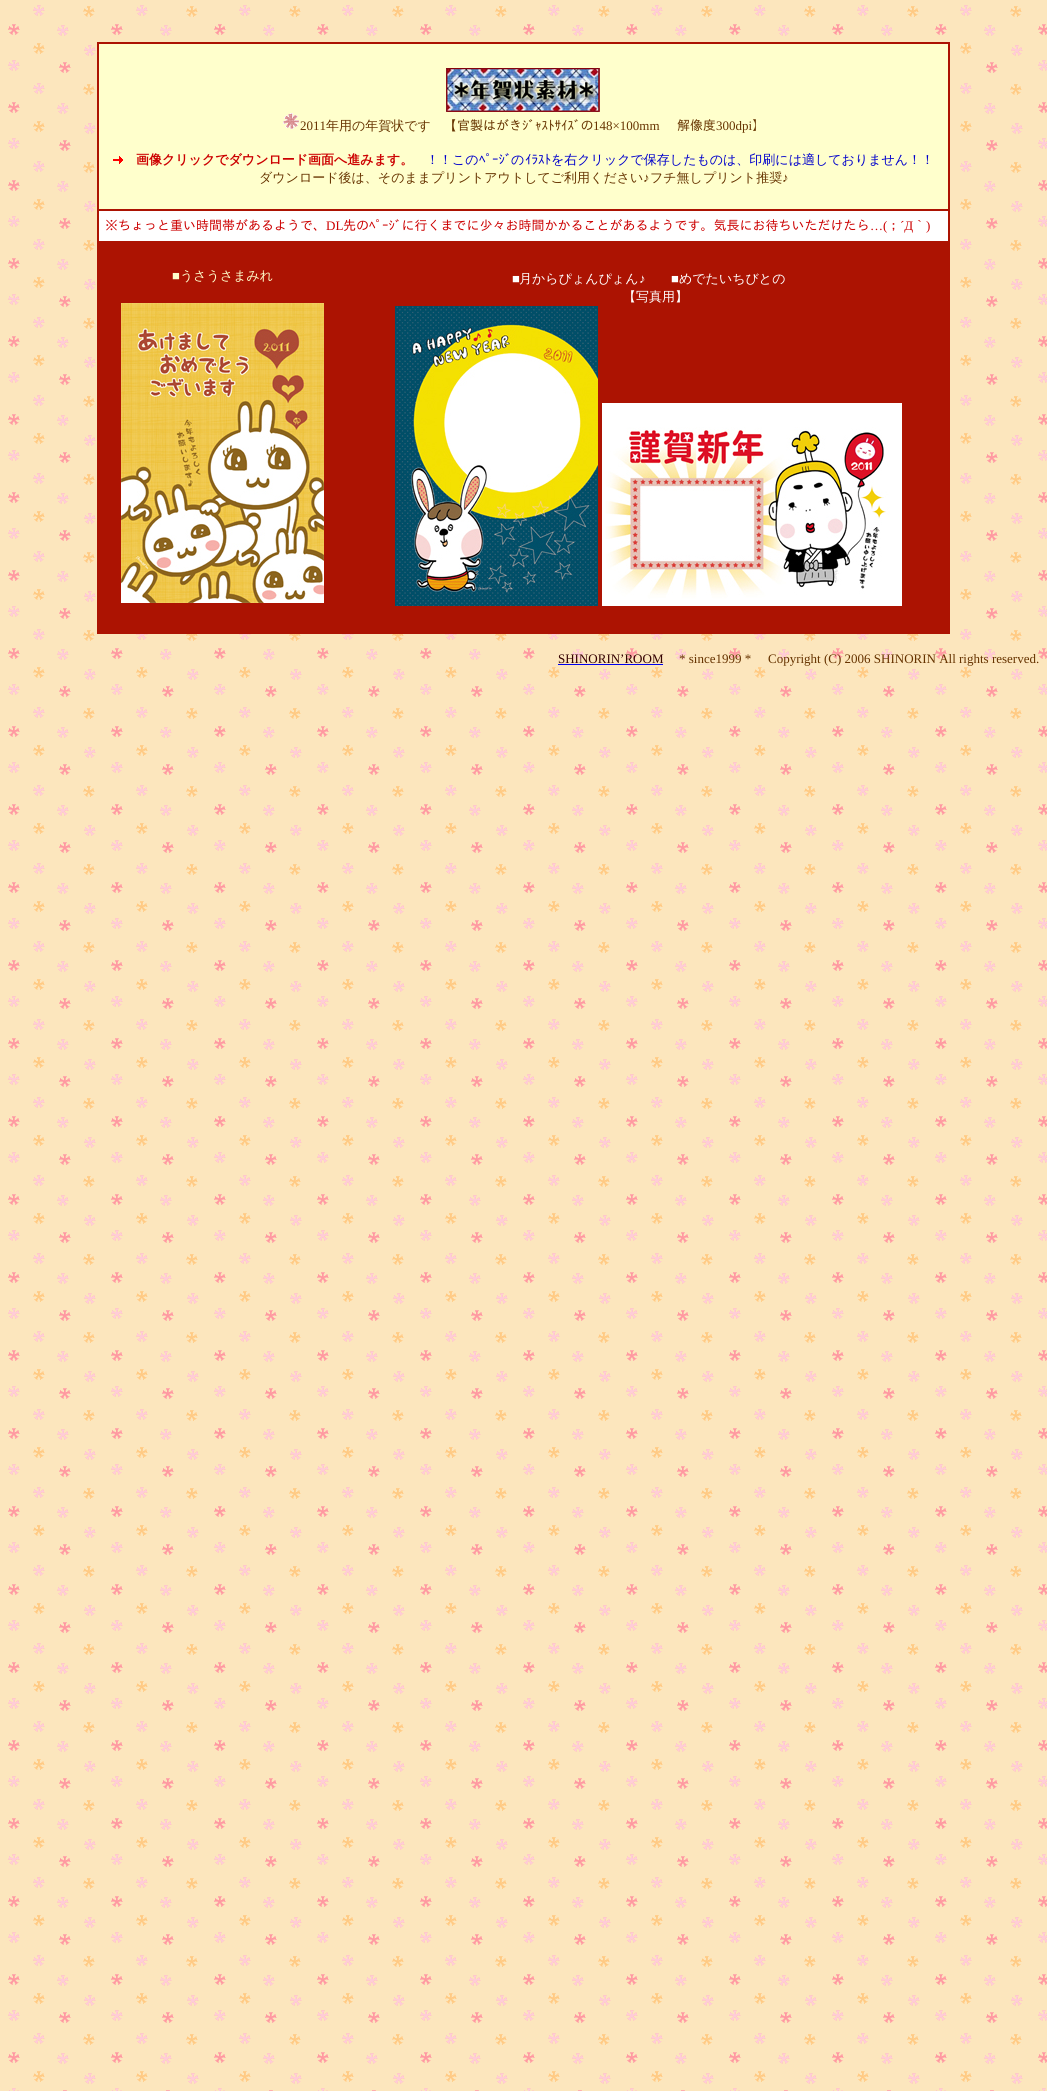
#include <cairo.h>
#include <math.h>
#include <stddef.h>


static void picture(cairo_t *cr, const char *path, double x, double y, double w, double h) {
    cairo_surface_t *image = cairo_image_surface_create_from_png(path);
    cairo_save(cr);
    cairo_set_source_surface(cr, image, x, y);
    cairo_rectangle(cr, x, y, w, h);
    cairo_fill(cr);
    cairo_restore(cr);
    cairo_surface_destroy(image);
}

int main(void) {
    cairo_surface_t *surface = cairo_image_surface_create(CAIRO_FORMAT_RGB24, 1047, 2091);
    cairo_t *cr = cairo_create(surface);
    cairo_font_options_t *options = cairo_font_options_create();
    cairo_font_options_set_hint_metrics(options, CAIRO_HINT_METRICS_OFF);
    cairo_font_options_set_hint_style(options, CAIRO_HINT_STYLE_NONE);
    cairo_set_font_options(cr, options);
    cairo_set_miter_limit(cr, 4);
    cairo_set_source_rgb(cr, 1, 1, 1);
    cairo_paint(cr);
    picture(cr, "img1.png", 0, 0, 1047, 2091);
    cairo_set_source_rgb(cr, 0.675, 0.075, 0.008);
    cairo_rectangle(cr, 97, 42, 853, 592);
    cairo_fill(cr);
    cairo_set_source_rgb(cr, 1, 1, 0.8);
    cairo_rectangle(cr, 99, 44, 849, 165);
    cairo_fill(cr);
    picture(cr, "img2.png", 446, 68, 154, 44);
    picture(cr, "img3.png", 283, 113, 16, 16);
    cairo_select_font_face(cr, "Liberation Serif", CAIRO_FONT_SLANT_NORMAL, CAIRO_FONT_WEIGHT_NORMAL);
    cairo_set_font_size(cr, 13);
    cairo_set_source_rgb(cr, 0.4, 0.2, 0);
    cairo_move_to(cr, 300, 130);
    cairo_show_text(cr, "2011");
    cairo_select_font_face(cr, "WenQuanYi Zen Hei Medium", CAIRO_FONT_SLANT_NORMAL, CAIRO_FONT_WEIGHT_NORMAL);
    cairo_move_to(cr, 326, 130);
    cairo_show_text(cr, "年用の年賀状です　【");
    cairo_select_font_face(cr, "IPAGothic", CAIRO_FONT_SLANT_NORMAL, CAIRO_FONT_WEIGHT_NORMAL);
    cairo_move_to(cr, 457, 130);
    cairo_show_text(cr, "官製はがきｼﾞｬｽﾄｻｲｽﾞの");
    cairo_select_font_face(cr, "Liberation Serif", CAIRO_FONT_SLANT_NORMAL, CAIRO_FONT_WEIGHT_NORMAL);
    cairo_move_to(cr, 593, 130);
    cairo_show_text(cr, "148×100mm");
    cairo_select_font_face(cr, "IPAGothic", CAIRO_FONT_SLANT_NORMAL, CAIRO_FONT_WEIGHT_NORMAL);
    cairo_move_to(cr, 677, 130);
    cairo_show_text(cr, "解像度");
    cairo_select_font_face(cr, "Liberation Serif", CAIRO_FONT_SLANT_NORMAL, CAIRO_FONT_WEIGHT_NORMAL);
    cairo_move_to(cr, 716, 130);
    cairo_show_text(cr, "300dpi");
    cairo_select_font_face(cr, "IPAGothic", CAIRO_FONT_SLANT_NORMAL, CAIRO_FONT_WEIGHT_NORMAL);
    cairo_move_to(cr, 752, 130);
    cairo_show_text(cr, "】");
    picture(cr, "img4.png", 113, 156, 10, 8);
    cairo_select_font_face(cr, "WenQuanYi Zen Hei", CAIRO_FONT_SLANT_NORMAL, CAIRO_FONT_WEIGHT_BOLD);
    cairo_set_source_rgb(cr, 0.8, 0, 0);
    cairo_move_to(cr, 136, 164);
    cairo_show_text(cr, "画像クリックでダウンロード画面へ進みます。");
    cairo_select_font_face(cr, "WenQuanYi Zen Hei Medium", CAIRO_FONT_SLANT_NORMAL, CAIRO_FONT_WEIGHT_NORMAL);
    cairo_set_source_rgb(cr, 0, 0, 0.8);
    cairo_move_to(cr, 426, 164);
    cairo_show_text(cr, "！！この");
    cairo_select_font_face(cr, "IPAGothic", CAIRO_FONT_SLANT_NORMAL, CAIRO_FONT_WEIGHT_NORMAL);
    cairo_move_to(cr, 479, 164);
    cairo_show_text(cr, "ﾍﾟｰｼﾞ");
    cairo_select_font_face(cr, "WenQuanYi Zen Hei Medium", CAIRO_FONT_SLANT_NORMAL, CAIRO_FONT_WEIGHT_NORMAL);
    cairo_move_to(cr, 511, 164);
    cairo_show_text(cr, "の");
    cairo_select_font_face(cr, "IPAGothic", CAIRO_FONT_SLANT_NORMAL, CAIRO_FONT_WEIGHT_NORMAL);
    cairo_move_to(cr, 525, 164);
    cairo_show_text(cr, "ｲﾗｽﾄ");
    cairo_select_font_face(cr, "WenQuanYi Zen Hei Medium", CAIRO_FONT_SLANT_NORMAL, CAIRO_FONT_WEIGHT_NORMAL);
    cairo_move_to(cr, 551, 164);
    cairo_show_text(cr, "を右クリックで保存したものは、印刷には適しておりません！！");
    cairo_set_source_rgb(cr, 0.4, 0.2, 0);
    cairo_move_to(cr, 259, 182);
    cairo_show_text(cr, "ダウンロード後は、そのままプリントアウトしてご利用ください");
    cairo_select_font_face(cr, "Liberation Serif", CAIRO_FONT_SLANT_NORMAL, CAIRO_FONT_WEIGHT_NORMAL);
    cairo_move_to(cr, 643, 182);
    cairo_show_text(cr, "♪");
    cairo_select_font_face(cr, "WenQuanYi Zen Hei Medium", CAIRO_FONT_SLANT_NORMAL, CAIRO_FONT_WEIGHT_NORMAL);
    cairo_move_to(cr, 650, 182);
    cairo_show_text(cr, "フチ無しプリント推奨");
    cairo_select_font_face(cr, "Liberation Serif", CAIRO_FONT_SLANT_NORMAL, CAIRO_FONT_WEIGHT_NORMAL);
    cairo_move_to(cr, 782, 182);
    cairo_show_text(cr, "♪");
    cairo_set_source_rgb(cr, 1, 1, 1);
    cairo_rectangle(cr, 99, 211, 849, 30);
    cairo_fill(cr);
    cairo_select_font_face(cr, "IPAGothic", CAIRO_FONT_SLANT_NORMAL, CAIRO_FONT_WEIGHT_NORMAL);
    cairo_set_source_rgb(cr, 0.8, 0, 0);
    cairo_move_to(cr, 105, 230);
    cairo_show_text(cr, "※ちょっと重い時間帯があるようで、");
    cairo_select_font_face(cr, "Liberation Serif", CAIRO_FONT_SLANT_NORMAL, CAIRO_FONT_WEIGHT_NORMAL);
    cairo_move_to(cr, 326, 230);
    cairo_show_text(cr, "DL");
    cairo_select_font_face(cr, "IPAGothic", CAIRO_FONT_SLANT_NORMAL, CAIRO_FONT_WEIGHT_NORMAL);
    cairo_move_to(cr, 343, 230);
    cairo_show_text(cr, "先のﾍﾟｰｼﾞに行くまでに少々お時間かかることがあるようです。気長にお待ちいただけたら");
    cairo_select_font_face(cr, "Liberation Serif", CAIRO_FONT_SLANT_NORMAL, CAIRO_FONT_WEIGHT_NORMAL);
    cairo_move_to(cr, 870, 230);
    cairo_show_text(cr, "…(");
    cairo_select_font_face(cr, "IPAGothic", CAIRO_FONT_SLANT_NORMAL, CAIRO_FONT_WEIGHT_NORMAL);
    cairo_move_to(cr, 887, 230);
    cairo_show_text(cr, "；");
    cairo_select_font_face(cr, "Liberation Serif", CAIRO_FONT_SLANT_NORMAL, CAIRO_FONT_WEIGHT_NORMAL);
    cairo_move_to(cr, 900, 230);
    cairo_show_text(cr, "´Д");
    cairo_select_font_face(cr, "IPAGothic", CAIRO_FONT_SLANT_NORMAL, CAIRO_FONT_WEIGHT_NORMAL);
    cairo_move_to(cr, 913, 230);
    cairo_show_text(cr, "｀");
    cairo_select_font_face(cr, "Liberation Serif", CAIRO_FONT_SLANT_NORMAL, CAIRO_FONT_WEIGHT_NORMAL);
    cairo_move_to(cr, 926, 230);
    cairo_show_text(cr, ")");
    cairo_set_source_rgb(cr, 1, 1, 0.8);
    cairo_move_to(cr, 172, 280);
    cairo_show_text(cr, "■");
    cairo_select_font_face(cr, "WenQuanYi Zen Hei Medium", CAIRO_FONT_SLANT_NORMAL, CAIRO_FONT_WEIGHT_NORMAL);
    cairo_move_to(cr, 180, 280);
    cairo_show_text(cr, "うさうさまみれ");
    picture(cr, "img5.png", 121, 303, 203, 300);
    cairo_select_font_face(cr, "Liberation Serif", CAIRO_FONT_SLANT_NORMAL, CAIRO_FONT_WEIGHT_NORMAL);
    cairo_set_source_rgb(cr, 1, 1, 1);
    cairo_move_to(cr, 512, 283);
    cairo_show_text(cr, "■");
    cairo_select_font_face(cr, "WenQuanYi Zen Hei Medium", CAIRO_FONT_SLANT_NORMAL, CAIRO_FONT_WEIGHT_NORMAL);
    cairo_move_to(cr, 519, 283);
    cairo_show_text(cr, "月からぴょんぴょん");
    cairo_select_font_face(cr, "Liberation Serif", CAIRO_FONT_SLANT_NORMAL, CAIRO_FONT_WEIGHT_NORMAL);
    cairo_move_to(cr, 639, 283);
    cairo_show_text(cr, "♪");
    cairo_move_to(cr, 671, 283);
    cairo_show_text(cr, "■");
    cairo_select_font_face(cr, "WenQuanYi Zen Hei Medium", CAIRO_FONT_SLANT_NORMAL, CAIRO_FONT_WEIGHT_NORMAL);
    cairo_move_to(cr, 679, 283);
    cairo_show_text(cr, "めでたいちびとの");
    cairo_move_to(cr, 623, 301);
    cairo_show_text(cr, "【写真用】");
    picture(cr, "img6.png", 395, 306, 203, 300);
    picture(cr, "img7.png", 602, 403, 300, 203);
    cairo_select_font_face(cr, "Liberation Serif", CAIRO_FONT_SLANT_NORMAL, CAIRO_FONT_WEIGHT_NORMAL);
    cairo_set_source_rgb(cr, 0.2, 0, 0);
    cairo_move_to(cr, 558, 663);
    cairo_show_text(cr, "SHINORIN’ROOM");
    cairo_set_source_rgb(cr, 0, 0, 0.933);
    cairo_rectangle(cr, 558, 664, 105, 1);
    cairo_fill(cr);
    cairo_set_source_rgb(cr, 0.4, 0.2, 0);
    cairo_move_to(cr, 679, 663);
    cairo_show_text(cr, "* since1999 *");
    cairo_move_to(cr, 768, 663);
    cairo_show_text(cr, "Copyright (C) 2006 SHINORIN All rights reserved.");
    cairo_surface_write_to_png(surface, "page.png");
    cairo_font_options_destroy(options);
    cairo_destroy(cr);
    cairo_surface_destroy(surface);
    return 0;
}
